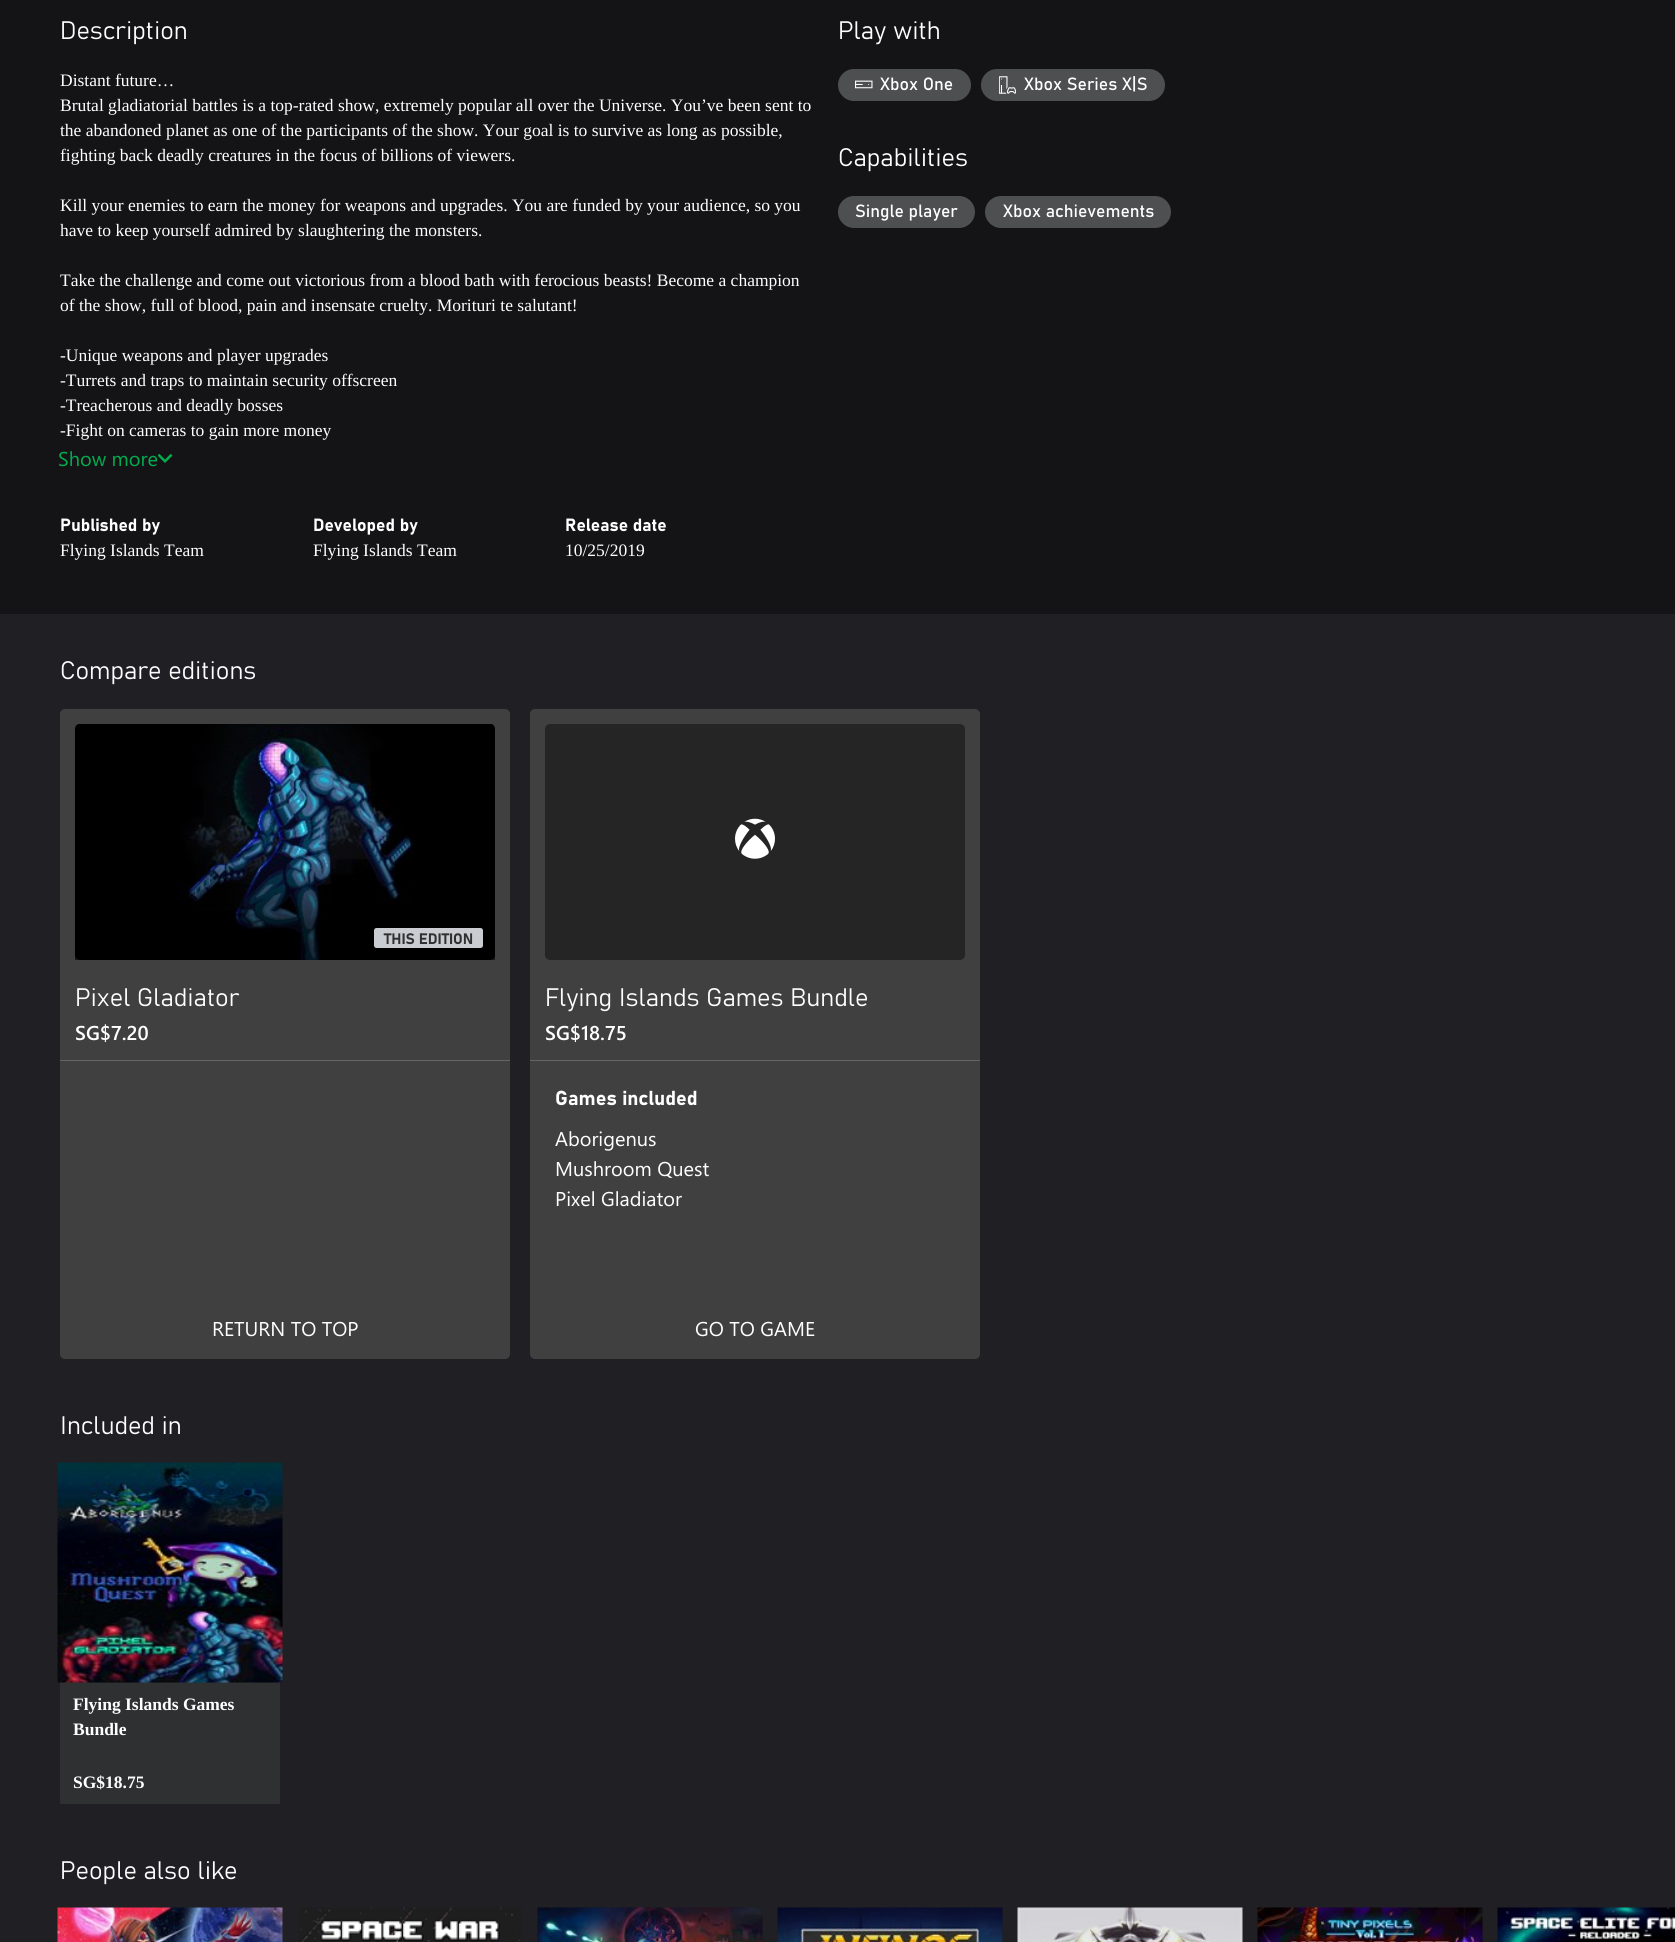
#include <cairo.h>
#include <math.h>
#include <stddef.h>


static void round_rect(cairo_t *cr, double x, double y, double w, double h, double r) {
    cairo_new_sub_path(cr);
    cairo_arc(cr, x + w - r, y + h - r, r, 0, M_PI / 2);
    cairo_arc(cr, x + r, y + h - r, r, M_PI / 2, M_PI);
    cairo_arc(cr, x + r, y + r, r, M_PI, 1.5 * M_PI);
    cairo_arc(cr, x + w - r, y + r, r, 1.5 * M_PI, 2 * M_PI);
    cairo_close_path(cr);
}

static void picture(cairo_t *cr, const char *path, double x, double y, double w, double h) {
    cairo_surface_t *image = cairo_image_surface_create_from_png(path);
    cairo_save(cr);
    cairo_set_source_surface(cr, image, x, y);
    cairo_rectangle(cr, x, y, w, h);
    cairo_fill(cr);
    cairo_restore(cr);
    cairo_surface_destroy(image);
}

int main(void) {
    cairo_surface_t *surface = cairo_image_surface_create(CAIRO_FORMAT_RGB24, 1675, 1942);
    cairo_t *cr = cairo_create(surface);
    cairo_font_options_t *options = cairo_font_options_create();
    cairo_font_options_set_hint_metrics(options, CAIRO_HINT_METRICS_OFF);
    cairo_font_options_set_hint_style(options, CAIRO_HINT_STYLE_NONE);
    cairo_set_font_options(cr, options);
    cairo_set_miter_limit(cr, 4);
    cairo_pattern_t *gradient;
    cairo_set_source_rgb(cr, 0.125, 0.122, 0.141);
    cairo_paint(cr);
    cairo_set_source_rgb(cr, 0.082, 0.082, 0.09);
    cairo_rectangle(cr, 0, 0, 1675, 614);
    cairo_fill(cr);
    cairo_select_font_face(cr, "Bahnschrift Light", CAIRO_FONT_SLANT_NORMAL, CAIRO_FONT_WEIGHT_NORMAL);
    cairo_set_font_size(cr, 25);
    cairo_set_source_rgb(cr, 1, 1, 1);
    cairo_move_to(cr, 60, 39);
    cairo_show_text(cr, "Description");
    cairo_select_font_face(cr, "Liberation Serif", CAIRO_FONT_SLANT_NORMAL, CAIRO_FONT_WEIGHT_NORMAL);
    cairo_set_font_size(cr, 17.5);
    cairo_move_to(cr, 60, 86);
    cairo_show_text(cr, "Distant future…");
    cairo_move_to(cr, 60, 111);
    cairo_show_text(cr, "Brutal gladiatorial battles is a top-rated show, extremely popular all over the Universe. You’ve been sent to");
    cairo_move_to(cr, 60, 136);
    cairo_show_text(cr, "the abandoned planet as one of the participants of the show. Your goal is to survive as long as possible,");
    cairo_move_to(cr, 60, 161);
    cairo_show_text(cr, "fighting back deadly creatures in the focus of billions of viewers.");
    cairo_move_to(cr, 60, 211);
    cairo_show_text(cr, "Kill your enemies to earn the money for weapons and upgrades. You are funded by your audience, so you");
    cairo_move_to(cr, 60, 236);
    cairo_show_text(cr, "have to keep yourself admired by slaughtering the monsters.");
    cairo_move_to(cr, 60, 286);
    cairo_show_text(cr, "Take the challenge and come out victorious from a blood bath with ferocious beasts! Become a champion");
    cairo_move_to(cr, 60, 311);
    cairo_show_text(cr, "of the show, full of blood, pain and insensate cruelty. Morituri te salutant!");
    cairo_move_to(cr, 60, 361);
    cairo_show_text(cr, "-Unique weapons and player upgrades");
    cairo_move_to(cr, 60, 386);
    cairo_show_text(cr, "-Turrets and traps to maintain security offscreen");
    cairo_move_to(cr, 60, 411);
    cairo_show_text(cr, "-Treacherous and deadly bosses");
    cairo_move_to(cr, 60, 436);
    cairo_show_text(cr, "-Fight on cameras to gain more money");
    cairo_select_font_face(cr, "Segoe UI", CAIRO_FONT_SLANT_NORMAL, CAIRO_FONT_WEIGHT_NORMAL);
    cairo_set_font_size(cr, 20);
    cairo_set_source_rgb(cr, 0.016, 0.671, 0.31);
    cairo_move_to(cr, 58, 466);
    cairo_show_text(cr, "Show more");
    picture(cr, "img1.png", 158, 453, 15, 10);
    cairo_select_font_face(cr, "Bahnschrift", CAIRO_FONT_SLANT_NORMAL, CAIRO_FONT_WEIGHT_BOLD);
    cairo_set_font_size(cr, 17.5);
    cairo_set_source_rgb(cr, 1, 1, 1);
    cairo_move_to(cr, 60, 531);
    cairo_show_text(cr, "Published by");
    cairo_select_font_face(cr, "Liberation Serif", CAIRO_FONT_SLANT_NORMAL, CAIRO_FONT_WEIGHT_NORMAL);
    cairo_move_to(cr, 60, 556);
    cairo_show_text(cr, "Flying Islands Team");
    cairo_select_font_face(cr, "Bahnschrift", CAIRO_FONT_SLANT_NORMAL, CAIRO_FONT_WEIGHT_BOLD);
    cairo_move_to(cr, 313, 531);
    cairo_show_text(cr, "Developed by");
    cairo_select_font_face(cr, "Liberation Serif", CAIRO_FONT_SLANT_NORMAL, CAIRO_FONT_WEIGHT_NORMAL);
    cairo_move_to(cr, 313, 556);
    cairo_show_text(cr, "Flying Islands Team");
    cairo_select_font_face(cr, "Bahnschrift", CAIRO_FONT_SLANT_NORMAL, CAIRO_FONT_WEIGHT_BOLD);
    cairo_move_to(cr, 565, 531);
    cairo_show_text(cr, "Release date");
    cairo_select_font_face(cr, "Liberation Serif", CAIRO_FONT_SLANT_NORMAL, CAIRO_FONT_WEIGHT_NORMAL);
    cairo_move_to(cr, 565, 556);
    cairo_show_text(cr, "10/25/2019");
    cairo_select_font_face(cr, "Bahnschrift Light", CAIRO_FONT_SLANT_NORMAL, CAIRO_FONT_WEIGHT_NORMAL);
    cairo_set_font_size(cr, 25);
    cairo_move_to(cr, 838, 39);
    cairo_show_text(cr, "Play with");
    cairo_set_source_rgb(cr, 0.302, 0.31, 0.318);
    round_rect(cr, 838, 69, 133, 32, 16);
    cairo_fill(cr);
    picture(cr, "img2.png", 855, 80, 18, 9);
    cairo_select_font_face(cr, "Bahnschrift", CAIRO_FONT_SLANT_NORMAL, CAIRO_FONT_WEIGHT_NORMAL);
    cairo_set_font_size(cr, 17.5);
    cairo_set_source_rgb(cr, 1, 1, 1);
    cairo_move_to(cr, 880, 90);
    cairo_show_text(cr, "Xbox One");
    cairo_set_source_rgb(cr, 0.302, 0.31, 0.318);
    round_rect(cr, 981, 69, 184, 32, 16);
    cairo_fill(cr);
    picture(cr, "img3.png", 999, 76, 17, 18);
    cairo_set_source_rgb(cr, 1, 1, 1);
    cairo_move_to(cr, 1024, 90);
    cairo_show_text(cr, "Xbox Series X|S");
    cairo_select_font_face(cr, "Bahnschrift Light", CAIRO_FONT_SLANT_NORMAL, CAIRO_FONT_WEIGHT_NORMAL);
    cairo_set_font_size(cr, 25);
    cairo_move_to(cr, 838, 166);
    cairo_show_text(cr, "Capabilities");
    cairo_set_source_rgb(cr, 0.302, 0.31, 0.318);
    round_rect(cr, 838, 196, 137, 32, 16);
    cairo_fill(cr);
    cairo_select_font_face(cr, "Bahnschrift", CAIRO_FONT_SLANT_NORMAL, CAIRO_FONT_WEIGHT_NORMAL);
    cairo_set_font_size(cr, 17.5);
    cairo_set_source_rgb(cr, 1, 1, 1);
    cairo_move_to(cr, 855, 217);
    cairo_show_text(cr, "Single player");
    cairo_set_source_rgb(cr, 0.302, 0.31, 0.318);
    round_rect(cr, 985, 196, 186, 32, 16);
    cairo_fill(cr);
    cairo_set_source_rgb(cr, 1, 1, 1);
    cairo_move_to(cr, 1003, 217);
    cairo_show_text(cr, "Xbox achievements");
    cairo_select_font_face(cr, "Bahnschrift Light", CAIRO_FONT_SLANT_NORMAL, CAIRO_FONT_WEIGHT_NORMAL);
    cairo_set_font_size(cr, 25);
    cairo_move_to(cr, 60, 679);
    cairo_show_text(cr, "Compare editions");
    cairo_set_source_rgb(cr, 0.251, 0.251, 0.251);
    round_rect(cr, 60, 709, 450, 650, 5);
    cairo_fill(cr);
    picture(cr, "img4.png", 75, 724, 420, 236);
    gradient = cairo_pattern_create_linear(285, 724, 285, 960);
    cairo_pattern_add_color_stop_rgba(gradient, 0.55, 0, 0, 0, 0);
    cairo_pattern_add_color_stop_rgba(gradient, 0.85, 0, 0, 0, 0.6);
    cairo_set_source(cr, gradient);
    cairo_pattern_destroy(gradient);
    cairo_rectangle(cr, 75, 856, 420, 104);
    cairo_fill(cr);
    cairo_set_source_rgb(cr, 0.788, 0.8, 0.82);
    round_rect(cr, 374, 928, 109, 20, 2.5);
    cairo_fill(cr);
    cairo_select_font_face(cr, "Bahnschrift", CAIRO_FONT_SLANT_NORMAL, CAIRO_FONT_WEIGHT_BOLD);
    cairo_set_font_size(cr, 15);
    cairo_set_source_rgb(cr, 0.184, 0.188, 0.196);
    cairo_move_to(cr, 384, 944);
    cairo_show_text(cr, "THIS EDITION");
    cairo_select_font_face(cr, "Bahnschrift Light", CAIRO_FONT_SLANT_NORMAL, CAIRO_FONT_WEIGHT_NORMAL);
    cairo_set_font_size(cr, 25);
    cairo_set_source_rgb(cr, 1, 1, 1);
    cairo_move_to(cr, 75, 1006);
    cairo_show_text(cr, "Pixel Gladiator");
    cairo_select_font_face(cr, "Segoe UI SemiBold", CAIRO_FONT_SLANT_NORMAL, CAIRO_FONT_WEIGHT_NORMAL);
    cairo_set_font_size(cr, 20);
    cairo_move_to(cr, 75, 1040);
    cairo_show_text(cr, "SG$7.20");
    cairo_set_source_rgb(cr, 0.396, 0.396, 0.396);
    cairo_rectangle(cr, 60, 1060, 450, 1);
    cairo_fill(cr);
    cairo_select_font_face(cr, "Segoe UI", CAIRO_FONT_SLANT_NORMAL, CAIRO_FONT_WEIGHT_NORMAL);
    cairo_set_source_rgb(cr, 1, 1, 1);
    cairo_move_to(cr, 212, 1336);
    cairo_show_text(cr, "RETURN TO TOP");
    cairo_set_source_rgb(cr, 0.251, 0.251, 0.251);
    round_rect(cr, 530, 709, 450, 650, 5);
    cairo_fill(cr);
    cairo_set_source_rgb(cr, 0.145, 0.145, 0.145);
    round_rect(cr, 545, 724, 420, 236, 5);
    cairo_fill(cr);
    picture(cr, "img5.png", 735, 818, 40, 41);
    cairo_select_font_face(cr, "Bahnschrift Light", CAIRO_FONT_SLANT_NORMAL, CAIRO_FONT_WEIGHT_NORMAL);
    cairo_set_font_size(cr, 25);
    cairo_set_source_rgb(cr, 1, 1, 1);
    cairo_move_to(cr, 545, 1006);
    cairo_show_text(cr, "Flying Islands Games Bundle");
    cairo_select_font_face(cr, "Segoe UI SemiBold", CAIRO_FONT_SLANT_NORMAL, CAIRO_FONT_WEIGHT_NORMAL);
    cairo_set_font_size(cr, 20);
    cairo_move_to(cr, 545, 1040);
    cairo_show_text(cr, "SG$18.75");
    cairo_set_source_rgb(cr, 0.396, 0.396, 0.396);
    cairo_rectangle(cr, 530, 1060, 450, 1);
    cairo_fill(cr);
    cairo_select_font_face(cr, "Bahnschrift", CAIRO_FONT_SLANT_NORMAL, CAIRO_FONT_WEIGHT_BOLD);
    cairo_set_source_rgb(cr, 1, 1, 1);
    cairo_move_to(cr, 555, 1105);
    cairo_show_text(cr, "Games included");
    cairo_select_font_face(cr, "Segoe UI", CAIRO_FONT_SLANT_NORMAL, CAIRO_FONT_WEIGHT_NORMAL);
    cairo_move_to(cr, 555, 1146);
    cairo_show_text(cr, "Aborigenus");
    cairo_move_to(cr, 555, 1176);
    cairo_show_text(cr, "Mushroom Quest");
    cairo_move_to(cr, 555, 1206);
    cairo_show_text(cr, "Pixel Gladiator");
    cairo_move_to(cr, 695, 1336);
    cairo_show_text(cr, "GO TO GAME");
    cairo_select_font_face(cr, "Bahnschrift Light", CAIRO_FONT_SLANT_NORMAL, CAIRO_FONT_WEIGHT_NORMAL);
    cairo_set_font_size(cr, 25);
    cairo_move_to(cr, 60, 1434);
    cairo_show_text(cr, "Included in");
    cairo_set_source_rgb(cr, 0.184, 0.188, 0.196);
    cairo_rectangle(cr, 60, 1682, 220, 122);
    cairo_fill(cr);
    picture(cr, "img6.png", 57, 1462, 226, 221);
    cairo_select_font_face(cr, "Liberation Serif", CAIRO_FONT_SLANT_NORMAL, CAIRO_FONT_WEIGHT_BOLD);
    cairo_set_font_size(cr, 17.5);
    cairo_set_source_rgb(cr, 1, 1, 1);
    cairo_move_to(cr, 73, 1710);
    cairo_show_text(cr, "Flying Islands Games");
    cairo_move_to(cr, 73, 1735);
    cairo_show_text(cr, "Bundle");
    cairo_move_to(cr, 73, 1788);
    cairo_show_text(cr, "SG$18.75");
    cairo_select_font_face(cr, "Bahnschrift Light", CAIRO_FONT_SLANT_NORMAL, CAIRO_FONT_WEIGHT_NORMAL);
    cairo_set_font_size(cr, 25);
    cairo_move_to(cr, 60, 1879);
    cairo_show_text(cr, "People also like");
    picture(cr, "img7.png", 57, 1907, 226, 35);
    picture(cr, "img8.png", 298, 1907, 224, 35);
    picture(cr, "img9.png", 537, 1907, 226, 35);
    picture(cr, "img10.png", 777, 1907, 226, 35);
    picture(cr, "img11.png", 1017, 1907, 226, 35);
    picture(cr, "img12.png", 1257, 1907, 226, 35);
    picture(cr, "img13.png", 1497, 1907, 178, 35);
    cairo_surface_write_to_png(surface, "page.png");
    cairo_font_options_destroy(options);
    cairo_destroy(cr);
    cairo_surface_destroy(surface);
    return 0;
}
